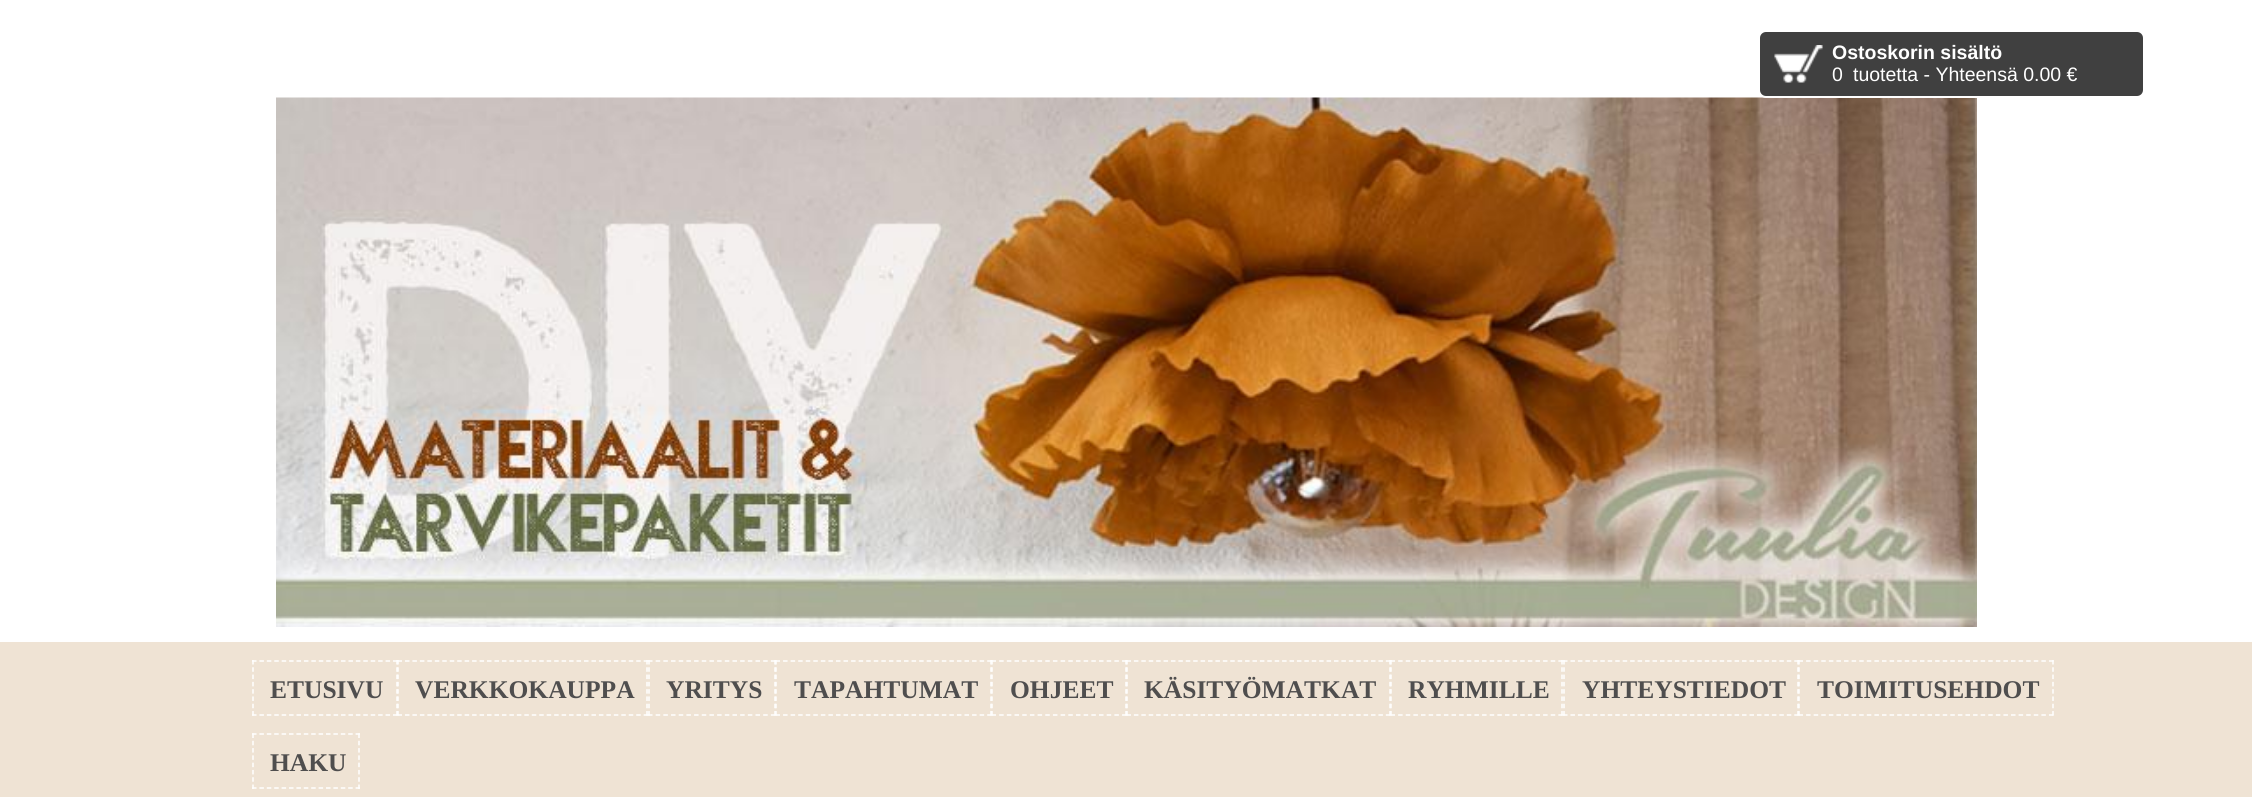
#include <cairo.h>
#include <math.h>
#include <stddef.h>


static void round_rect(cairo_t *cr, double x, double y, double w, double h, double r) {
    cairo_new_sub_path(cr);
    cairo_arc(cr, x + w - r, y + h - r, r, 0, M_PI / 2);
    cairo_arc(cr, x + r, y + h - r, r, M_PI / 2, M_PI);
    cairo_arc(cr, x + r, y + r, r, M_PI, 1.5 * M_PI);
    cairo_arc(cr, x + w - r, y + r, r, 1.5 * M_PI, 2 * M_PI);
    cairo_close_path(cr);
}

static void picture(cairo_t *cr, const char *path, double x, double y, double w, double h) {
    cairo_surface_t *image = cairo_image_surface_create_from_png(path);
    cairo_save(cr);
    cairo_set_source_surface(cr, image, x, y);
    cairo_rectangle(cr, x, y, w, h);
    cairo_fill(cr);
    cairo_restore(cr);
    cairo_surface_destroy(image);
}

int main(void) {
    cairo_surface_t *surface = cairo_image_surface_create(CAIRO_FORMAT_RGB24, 2252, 797);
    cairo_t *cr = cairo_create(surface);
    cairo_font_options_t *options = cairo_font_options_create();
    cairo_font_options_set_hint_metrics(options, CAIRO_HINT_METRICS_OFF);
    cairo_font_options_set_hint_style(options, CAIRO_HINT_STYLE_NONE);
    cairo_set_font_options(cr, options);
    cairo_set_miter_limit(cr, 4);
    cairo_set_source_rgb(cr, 1, 1, 1);
    cairo_paint(cr);
    picture(cr, "img2.png", 276, 97, 1701, 530);
    cairo_set_source_rgba(cr, 0, 0, 0, 0.75);
    round_rect(cr, 1759, 31, 385, 66, 7);
    cairo_fill_preserve(cr);
    cairo_set_source_rgb(cr, 1, 1, 1);
    cairo_stroke(cr);
    picture(cr, "img1.png", 1774, 45, 49, 38);
    cairo_select_font_face(cr, "Liberation Sans", CAIRO_FONT_SLANT_NORMAL, CAIRO_FONT_WEIGHT_BOLD);
    cairo_set_font_size(cr, 19.5);
    cairo_move_to(cr, 1832, 59);
    cairo_show_text(cr, "Ostoskorin sisältö");
    cairo_select_font_face(cr, "Liberation Sans", CAIRO_FONT_SLANT_NORMAL, CAIRO_FONT_WEIGHT_NORMAL);
    cairo_move_to(cr, 1832, 81);
    cairo_show_text(cr, "0");
    cairo_move_to(cr, 1853, 81);
    cairo_show_text(cr, "tuotetta - Yhteensä 0.00 €");
    cairo_set_source_rgb(cr, 0.937, 0.89, 0.831);
    cairo_rectangle(cr, 0, 642, 2252, 155);
    cairo_fill(cr);
    cairo_new_path(cr);
    cairo_move_to(cr, 252, 661);
    cairo_line_to(cr, 397.5, 661);
    cairo_set_source_rgb(cr, 1, 1, 1);
    cairo_set_line_width(cr, 1.5);
    cairo_set_dash(cr, (double[]){4.5, 2.92}, 2, 0);
    cairo_stroke(cr);
    cairo_new_path(cr);
    cairo_move_to(cr, 397, 660);
    cairo_line_to(cr, 397, 715.5);
    cairo_set_dash(cr, (double[]){4.5, 2.79}, 2, 0);
    cairo_stroke(cr);
    cairo_new_path(cr);
    cairo_move_to(cr, 252, 715);
    cairo_line_to(cr, 397.5, 715);
    cairo_set_dash(cr, (double[]){4.5, 2.92}, 2, 0);
    cairo_stroke(cr);
    cairo_new_path(cr);
    cairo_move_to(cr, 253, 660);
    cairo_line_to(cr, 253, 715.5);
    cairo_set_dash(cr, (double[]){4.5, 2.79}, 2, 0);
    cairo_stroke(cr);
    cairo_select_font_face(cr, "Liberation Serif", CAIRO_FONT_SLANT_NORMAL, CAIRO_FONT_WEIGHT_BOLD);
    cairo_set_font_size(cr, 25.5);
    cairo_set_source_rgb(cr, 0.31, 0.306, 0.306);
    cairo_move_to(cr, 270, 698);
    cairo_show_text(cr, "ETUSIVU");
    cairo_new_path(cr);
    cairo_move_to(cr, 397.5, 661);
    cairo_line_to(cr, 648, 661);
    cairo_set_source_rgb(cr, 1, 1, 1);
    cairo_set_dash(cr, (double[]){4.5, 2.96}, 2, 0);
    cairo_stroke(cr);
    cairo_new_path(cr);
    cairo_move_to(cr, 647, 660);
    cairo_line_to(cr, 647, 715.5);
    cairo_set_dash(cr, (double[]){4.5, 2.79}, 2, 0);
    cairo_stroke(cr);
    cairo_new_path(cr);
    cairo_move_to(cr, 397.5, 715);
    cairo_line_to(cr, 648, 715);
    cairo_set_dash(cr, (double[]){4.5, 2.96}, 2, 0);
    cairo_stroke(cr);
    cairo_new_path(cr);
    cairo_move_to(cr, 398, 660);
    cairo_line_to(cr, 398, 715.5);
    cairo_set_dash(cr, (double[]){4.5, 2.79}, 2, 0);
    cairo_stroke(cr);
    cairo_set_source_rgb(cr, 0.31, 0.306, 0.306);
    cairo_move_to(cr, 415, 698);
    cairo_show_text(cr, "VERKKOKAUPPA");
    cairo_new_path(cr);
    cairo_move_to(cr, 648, 661);
    cairo_line_to(cr, 775.5, 661);
    cairo_set_source_rgb(cr, 1, 1, 1);
    cairo_set_dash(cr, (double[]){4.5, 3.18}, 2, 0);
    cairo_stroke(cr);
    cairo_new_path(cr);
    cairo_move_to(cr, 775, 660);
    cairo_line_to(cr, 775, 715.5);
    cairo_set_dash(cr, (double[]){4.5, 2.79}, 2, 0);
    cairo_stroke(cr);
    cairo_new_path(cr);
    cairo_move_to(cr, 648, 715);
    cairo_line_to(cr, 775.5, 715);
    cairo_set_dash(cr, (double[]){4.5, 3.18}, 2, 0);
    cairo_stroke(cr);
    cairo_new_path(cr);
    cairo_move_to(cr, 649, 660);
    cairo_line_to(cr, 649, 715.5);
    cairo_set_dash(cr, (double[]){4.5, 2.79}, 2, 0);
    cairo_stroke(cr);
    cairo_set_source_rgb(cr, 0.31, 0.306, 0.306);
    cairo_move_to(cr, 666, 698);
    cairo_show_text(cr, "YRITYS");
    cairo_new_path(cr);
    cairo_move_to(cr, 775.5, 661);
    cairo_line_to(cr, 991.5, 661);
    cairo_set_source_rgb(cr, 1, 1, 1);
    cairo_set_dash(cr, (double[]){4.5, 3.06}, 2, 0);
    cairo_stroke(cr);
    cairo_new_path(cr);
    cairo_move_to(cr, 991, 660);
    cairo_line_to(cr, 991, 715.5);
    cairo_set_dash(cr, (double[]){4.5, 2.79}, 2, 0);
    cairo_stroke(cr);
    cairo_new_path(cr);
    cairo_move_to(cr, 775.5, 715);
    cairo_line_to(cr, 991.5, 715);
    cairo_set_dash(cr, (double[]){4.5, 3.06}, 2, 0);
    cairo_stroke(cr);
    cairo_new_path(cr);
    cairo_move_to(cr, 776, 660);
    cairo_line_to(cr, 776, 715.5);
    cairo_set_dash(cr, (double[]){4.5, 2.79}, 2, 0);
    cairo_stroke(cr);
    cairo_set_source_rgb(cr, 0.31, 0.306, 0.306);
    cairo_move_to(cr, 794, 698);
    cairo_show_text(cr, "TAPAHTUMAT");
    cairo_new_path(cr);
    cairo_move_to(cr, 991.5, 661);
    cairo_line_to(cr, 1126.5, 661);
    cairo_set_source_rgb(cr, 1, 1, 1);
    cairo_set_dash(cr, (double[]){4.5, 3.18}, 2, 0);
    cairo_stroke(cr);
    cairo_new_path(cr);
    cairo_move_to(cr, 1126, 660);
    cairo_line_to(cr, 1126, 715.5);
    cairo_set_dash(cr, (double[]){4.5, 2.79}, 2, 0);
    cairo_stroke(cr);
    cairo_new_path(cr);
    cairo_move_to(cr, 991.5, 715);
    cairo_line_to(cr, 1126.5, 715);
    cairo_set_dash(cr, (double[]){4.5, 3.18}, 2, 0);
    cairo_stroke(cr);
    cairo_new_path(cr);
    cairo_move_to(cr, 992, 660);
    cairo_line_to(cr, 992, 715.5);
    cairo_set_dash(cr, (double[]){4.5, 2.79}, 2, 0);
    cairo_stroke(cr);
    cairo_set_source_rgb(cr, 0.31, 0.306, 0.306);
    cairo_move_to(cr, 1010, 698);
    cairo_show_text(cr, "OHJEET");
    cairo_new_path(cr);
    cairo_move_to(cr, 1126.5, 661);
    cairo_line_to(cr, 1390.5, 661);
    cairo_set_source_rgb(cr, 1, 1, 1);
    cairo_set_dash(cr, (double[]){4.5, 2.91}, 2, 0);
    cairo_stroke(cr);
    cairo_new_path(cr);
    cairo_move_to(cr, 1390, 660);
    cairo_line_to(cr, 1390, 715.5);
    cairo_set_dash(cr, (double[]){4.5, 2.79}, 2, 0);
    cairo_stroke(cr);
    cairo_new_path(cr);
    cairo_move_to(cr, 1126.5, 715);
    cairo_line_to(cr, 1390.5, 715);
    cairo_set_dash(cr, (double[]){4.5, 2.91}, 2, 0);
    cairo_stroke(cr);
    cairo_new_path(cr);
    cairo_move_to(cr, 1127, 660);
    cairo_line_to(cr, 1127, 715.5);
    cairo_set_dash(cr, (double[]){4.5, 2.79}, 2, 0);
    cairo_stroke(cr);
    cairo_set_source_rgb(cr, 0.31, 0.306, 0.306);
    cairo_move_to(cr, 1144, 698);
    cairo_show_text(cr, "KÄSITYÖMATKAT");
    cairo_new_path(cr);
    cairo_move_to(cr, 1390.5, 661);
    cairo_line_to(cr, 1563, 661);
    cairo_set_source_rgb(cr, 1, 1, 1);
    cairo_set_dash(cr, (double[]){4.5, 3.13}, 2, 0);
    cairo_stroke(cr);
    cairo_new_path(cr);
    cairo_move_to(cr, 1562, 660);
    cairo_line_to(cr, 1562, 715.5);
    cairo_set_dash(cr, (double[]){4.5, 2.79}, 2, 0);
    cairo_stroke(cr);
    cairo_new_path(cr);
    cairo_move_to(cr, 1390.5, 715);
    cairo_line_to(cr, 1563, 715);
    cairo_set_dash(cr, (double[]){4.5, 3.13}, 2, 0);
    cairo_stroke(cr);
    cairo_new_path(cr);
    cairo_move_to(cr, 1391, 660);
    cairo_line_to(cr, 1391, 715.5);
    cairo_set_dash(cr, (double[]){4.5, 2.79}, 2, 0);
    cairo_stroke(cr);
    cairo_set_source_rgb(cr, 0.31, 0.306, 0.306);
    cairo_move_to(cr, 1408, 698);
    cairo_show_text(cr, "RYHMILLE");
    cairo_new_path(cr);
    cairo_move_to(cr, 1563, 661);
    cairo_line_to(cr, 1798.5, 661);
    cairo_set_source_rgb(cr, 1, 1, 1);
    cairo_set_dash(cr, (double[]){4.5, 2.96}, 2, 0);
    cairo_stroke(cr);
    cairo_new_path(cr);
    cairo_move_to(cr, 1798, 660);
    cairo_line_to(cr, 1798, 715.5);
    cairo_set_dash(cr, (double[]){4.5, 2.79}, 2, 0);
    cairo_stroke(cr);
    cairo_new_path(cr);
    cairo_move_to(cr, 1563, 715);
    cairo_line_to(cr, 1798.5, 715);
    cairo_set_dash(cr, (double[]){4.5, 2.96}, 2, 0);
    cairo_stroke(cr);
    cairo_new_path(cr);
    cairo_move_to(cr, 1564, 660);
    cairo_line_to(cr, 1564, 715.5);
    cairo_set_dash(cr, (double[]){4.5, 2.79}, 2, 0);
    cairo_stroke(cr);
    cairo_set_source_rgb(cr, 0.31, 0.306, 0.306);
    cairo_move_to(cr, 1582, 698);
    cairo_show_text(cr, "YHTEYSTIEDOT");
    cairo_new_path(cr);
    cairo_move_to(cr, 1798.5, 661);
    cairo_line_to(cr, 2053.5, 661);
    cairo_set_source_rgb(cr, 1, 1, 1);
    cairo_set_dash(cr, (double[]){4.5, 3.09}, 2, 0);
    cairo_stroke(cr);
    cairo_new_path(cr);
    cairo_move_to(cr, 2053, 660);
    cairo_line_to(cr, 2053, 715.5);
    cairo_set_dash(cr, (double[]){4.5, 2.79}, 2, 0);
    cairo_stroke(cr);
    cairo_new_path(cr);
    cairo_move_to(cr, 1798.5, 715);
    cairo_line_to(cr, 2053.5, 715);
    cairo_set_dash(cr, (double[]){4.5, 3.09}, 2, 0);
    cairo_stroke(cr);
    cairo_new_path(cr);
    cairo_move_to(cr, 1799, 660);
    cairo_line_to(cr, 1799, 715.5);
    cairo_set_dash(cr, (double[]){4.5, 2.79}, 2, 0);
    cairo_stroke(cr);
    cairo_set_source_rgb(cr, 0.31, 0.306, 0.306);
    cairo_move_to(cr, 1817, 698);
    cairo_show_text(cr, "TOIMITUSEHDOT");
    cairo_new_path(cr);
    cairo_move_to(cr, 252, 734);
    cairo_line_to(cr, 360, 734);
    cairo_set_source_rgb(cr, 1, 1, 1);
    cairo_set_dash(cr, (double[]){4.5, 2.9}, 2, 0);
    cairo_stroke(cr);
    cairo_new_path(cr);
    cairo_move_to(cr, 359, 733.5);
    cairo_line_to(cr, 359, 789);
    cairo_set_dash(cr, (double[]){4.5, 2.79}, 2, 0);
    cairo_stroke(cr);
    cairo_new_path(cr);
    cairo_move_to(cr, 252, 788);
    cairo_line_to(cr, 360, 788);
    cairo_set_dash(cr, (double[]){4.5, 2.9}, 2, 0);
    cairo_stroke(cr);
    cairo_new_path(cr);
    cairo_move_to(cr, 253, 733.5);
    cairo_line_to(cr, 253, 789);
    cairo_set_dash(cr, (double[]){4.5, 2.79}, 2, 0);
    cairo_stroke(cr);
    cairo_set_source_rgb(cr, 0.31, 0.306, 0.306);
    cairo_move_to(cr, 270, 771);
    cairo_show_text(cr, "HAKU");
    cairo_surface_write_to_png(surface, "page.png");
    cairo_font_options_destroy(options);
    cairo_destroy(cr);
    cairo_surface_destroy(surface);
    return 0;
}
